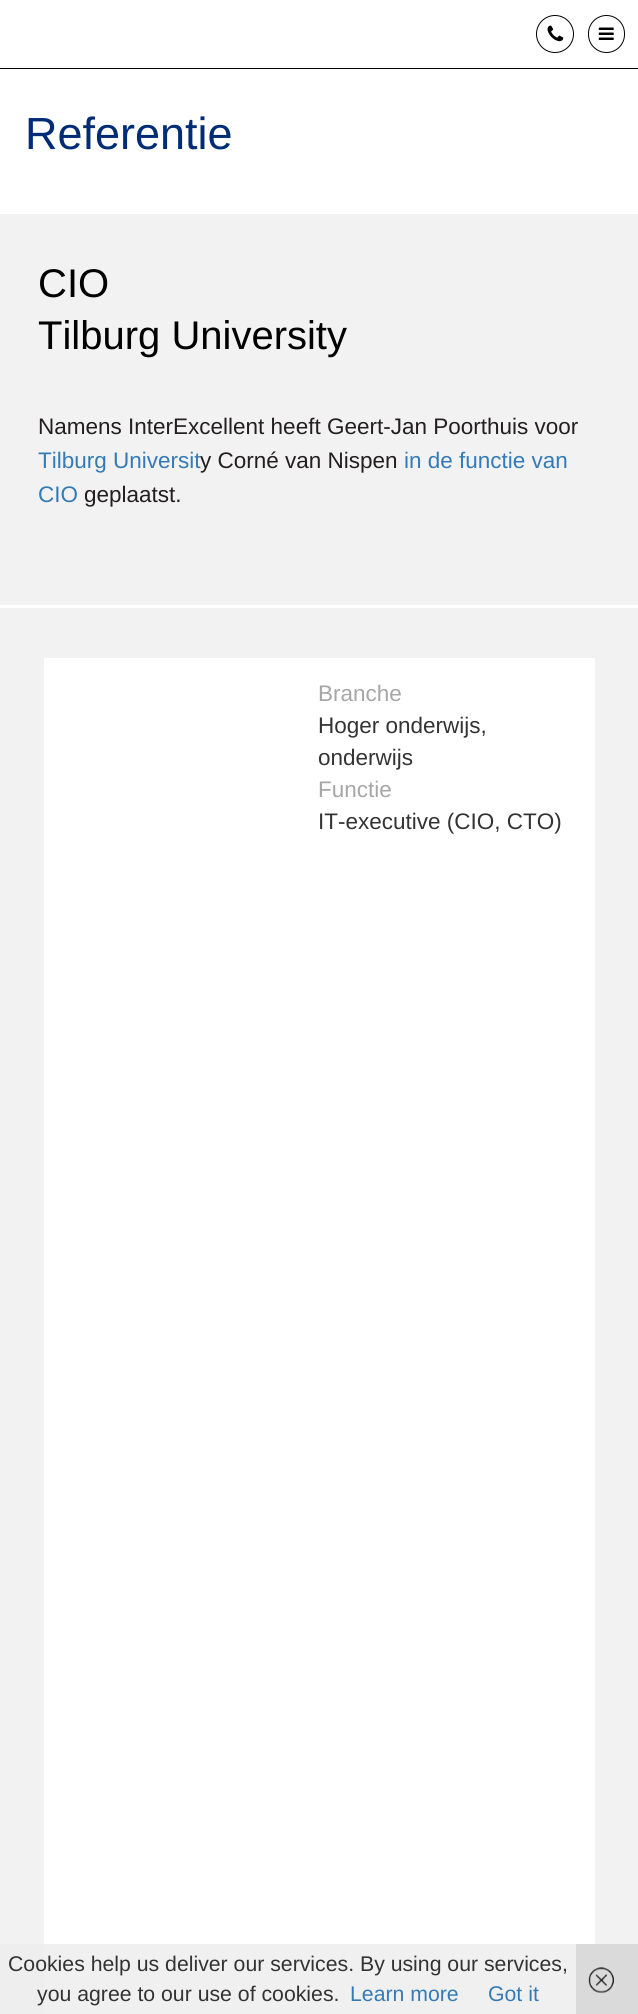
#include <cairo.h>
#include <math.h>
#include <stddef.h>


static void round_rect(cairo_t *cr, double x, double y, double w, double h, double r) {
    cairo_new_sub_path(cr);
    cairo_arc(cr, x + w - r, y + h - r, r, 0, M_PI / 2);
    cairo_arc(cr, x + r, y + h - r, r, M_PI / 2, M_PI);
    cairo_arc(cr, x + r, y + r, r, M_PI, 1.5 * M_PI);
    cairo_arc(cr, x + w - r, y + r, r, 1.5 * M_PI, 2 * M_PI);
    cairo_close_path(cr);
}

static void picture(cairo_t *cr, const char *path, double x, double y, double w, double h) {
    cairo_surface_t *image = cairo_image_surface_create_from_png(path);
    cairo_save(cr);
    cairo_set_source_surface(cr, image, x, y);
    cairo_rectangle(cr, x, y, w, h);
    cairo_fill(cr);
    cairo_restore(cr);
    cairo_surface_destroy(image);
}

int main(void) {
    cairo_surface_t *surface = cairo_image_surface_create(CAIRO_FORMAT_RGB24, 638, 2014);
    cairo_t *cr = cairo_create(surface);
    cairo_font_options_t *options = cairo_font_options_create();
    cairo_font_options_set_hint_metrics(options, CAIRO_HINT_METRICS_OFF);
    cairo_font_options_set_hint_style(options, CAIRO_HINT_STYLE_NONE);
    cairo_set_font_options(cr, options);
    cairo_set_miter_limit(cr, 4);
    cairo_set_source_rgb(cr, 1, 1, 1);
    cairo_paint(cr);
    cairo_set_source_rgb(cr, 0, 0, 0);
    cairo_rectangle(cr, 0, 68, 638, 1);
    cairo_fill(cr);
    cairo_arc(cr, 555, 34, 18.5, 0, 2 * M_PI);
    cairo_set_line_width(cr, 1);
    cairo_stroke(cr);
    picture(cr, "img1.png", 547, 25, 17, 17);
    round_rect(cr, 588.5, 15.5, 36, 37, 18);
    cairo_stroke(cr);
    picture(cr, "img2.png", 598, 27, 16, 13);
    cairo_select_font_face(cr, "Liberation Sans", CAIRO_FONT_SLANT_NORMAL, CAIRO_FONT_WEIGHT_NORMAL);
    cairo_set_font_size(cr, 45);
    cairo_set_source_rgb(cr, 0, 0.173, 0.463);
    cairo_move_to(cr, 25, 149);
    cairo_show_text(cr, "Referentie");
    cairo_set_source_rgb(cr, 0.949, 0.949, 0.949);
    cairo_rectangle(cr, 0, 214, 638, 391);
    cairo_fill(cr);
    cairo_set_font_size(cr, 40);
    cairo_set_source_rgb(cr, 0, 0, 0);
    cairo_move_to(cr, 38, 297);
    cairo_show_text(cr, "CIO");
    cairo_move_to(cr, 38, 349);
    cairo_show_text(cr, "Tilburg University");
    cairo_set_font_size(cr, 22.5);
    cairo_set_source_rgb(cr, 0.137, 0.122, 0.125);
    cairo_move_to(cr, 38, 434);
    cairo_show_text(cr, "Namens InterExcellent heeft Geert-Jan Poorthuis voor");
    cairo_set_source_rgb(cr, 0.2, 0.478, 0.718);
    cairo_move_to(cr, 38, 468);
    cairo_show_text(cr, "Tilburg Universit");
    cairo_set_source_rgb(cr, 0.137, 0.122, 0.125);
    cairo_move_to(cr, 200, 468);
    cairo_show_text(cr, "y Corné van Nispen");
    cairo_set_source_rgb(cr, 0.2, 0.478, 0.718);
    cairo_move_to(cr, 404, 468);
    cairo_show_text(cr, "in de functie van");
    cairo_move_to(cr, 38, 502);
    cairo_show_text(cr, "CIO");
    cairo_set_source_rgb(cr, 0.137, 0.122, 0.125);
    cairo_move_to(cr, 84, 502);
    cairo_show_text(cr, "geplaatst.");
    cairo_set_source_rgb(cr, 0.949, 0.949, 0.949);
    cairo_rectangle(cr, 0, 608, 638, 1336);
    cairo_fill(cr);
    cairo_set_source_rgb(cr, 0.933, 0.933, 0.933);
    cairo_rectangle(cr, 0, 1944, 44, 70);
    cairo_fill(cr);
    cairo_set_source_rgb(cr, 1, 1, 1);
    cairo_rectangle(cr, 44, 658, 551, 1286);
    cairo_fill(cr);
    cairo_set_source_rgb(cr, 0.941, 0.941, 0.941);
    cairo_rectangle(cr, 44, 1944, 532, 70);
    cairo_fill(cr);
    cairo_set_source_rgb(cr, 0.651, 0.651, 0.651);
    cairo_move_to(cr, 318, 701);
    cairo_show_text(cr, "Branche");
    cairo_set_source_rgb(cr, 0.2, 0.2, 0.2);
    cairo_move_to(cr, 318, 733);
    cairo_show_text(cr, "Hoger onderwijs,");
    cairo_move_to(cr, 318, 765);
    cairo_show_text(cr, "onderwijs");
    cairo_set_source_rgb(cr, 0.651, 0.651, 0.651);
    cairo_move_to(cr, 318, 797);
    cairo_show_text(cr, "Functie");
    cairo_set_source_rgb(cr, 0.2, 0.2, 0.2);
    cairo_move_to(cr, 318, 829);
    cairo_show_text(cr, "IT-executive (CIO, CTO)");
    cairo_set_font_size(cr, 21.25);
    cairo_move_to(cr, 8, 1971);
    cairo_show_text(cr, "Cookies help us deliver our services. By using our services,");
    cairo_move_to(cr, 37, 2001);
    cairo_show_text(cr, "you agree to our use of cookies.");
    cairo_set_source_rgb(cr, 0.2, 0.478, 0.718);
    cairo_move_to(cr, 350, 2001);
    cairo_show_text(cr, "Learn more");
    cairo_move_to(cr, 488, 2001);
    cairo_show_text(cr, "Got it");
    cairo_set_source_rgb(cr, 0.855, 0.855, 0.855);
    cairo_rectangle(cr, 576, 1944, 62, 70);
    cairo_fill(cr);
    picture(cr, "img3.png", 588, 1967, 26, 26);
    cairo_surface_write_to_png(surface, "page.png");
    cairo_font_options_destroy(options);
    cairo_destroy(cr);
    cairo_surface_destroy(surface);
    return 0;
}
